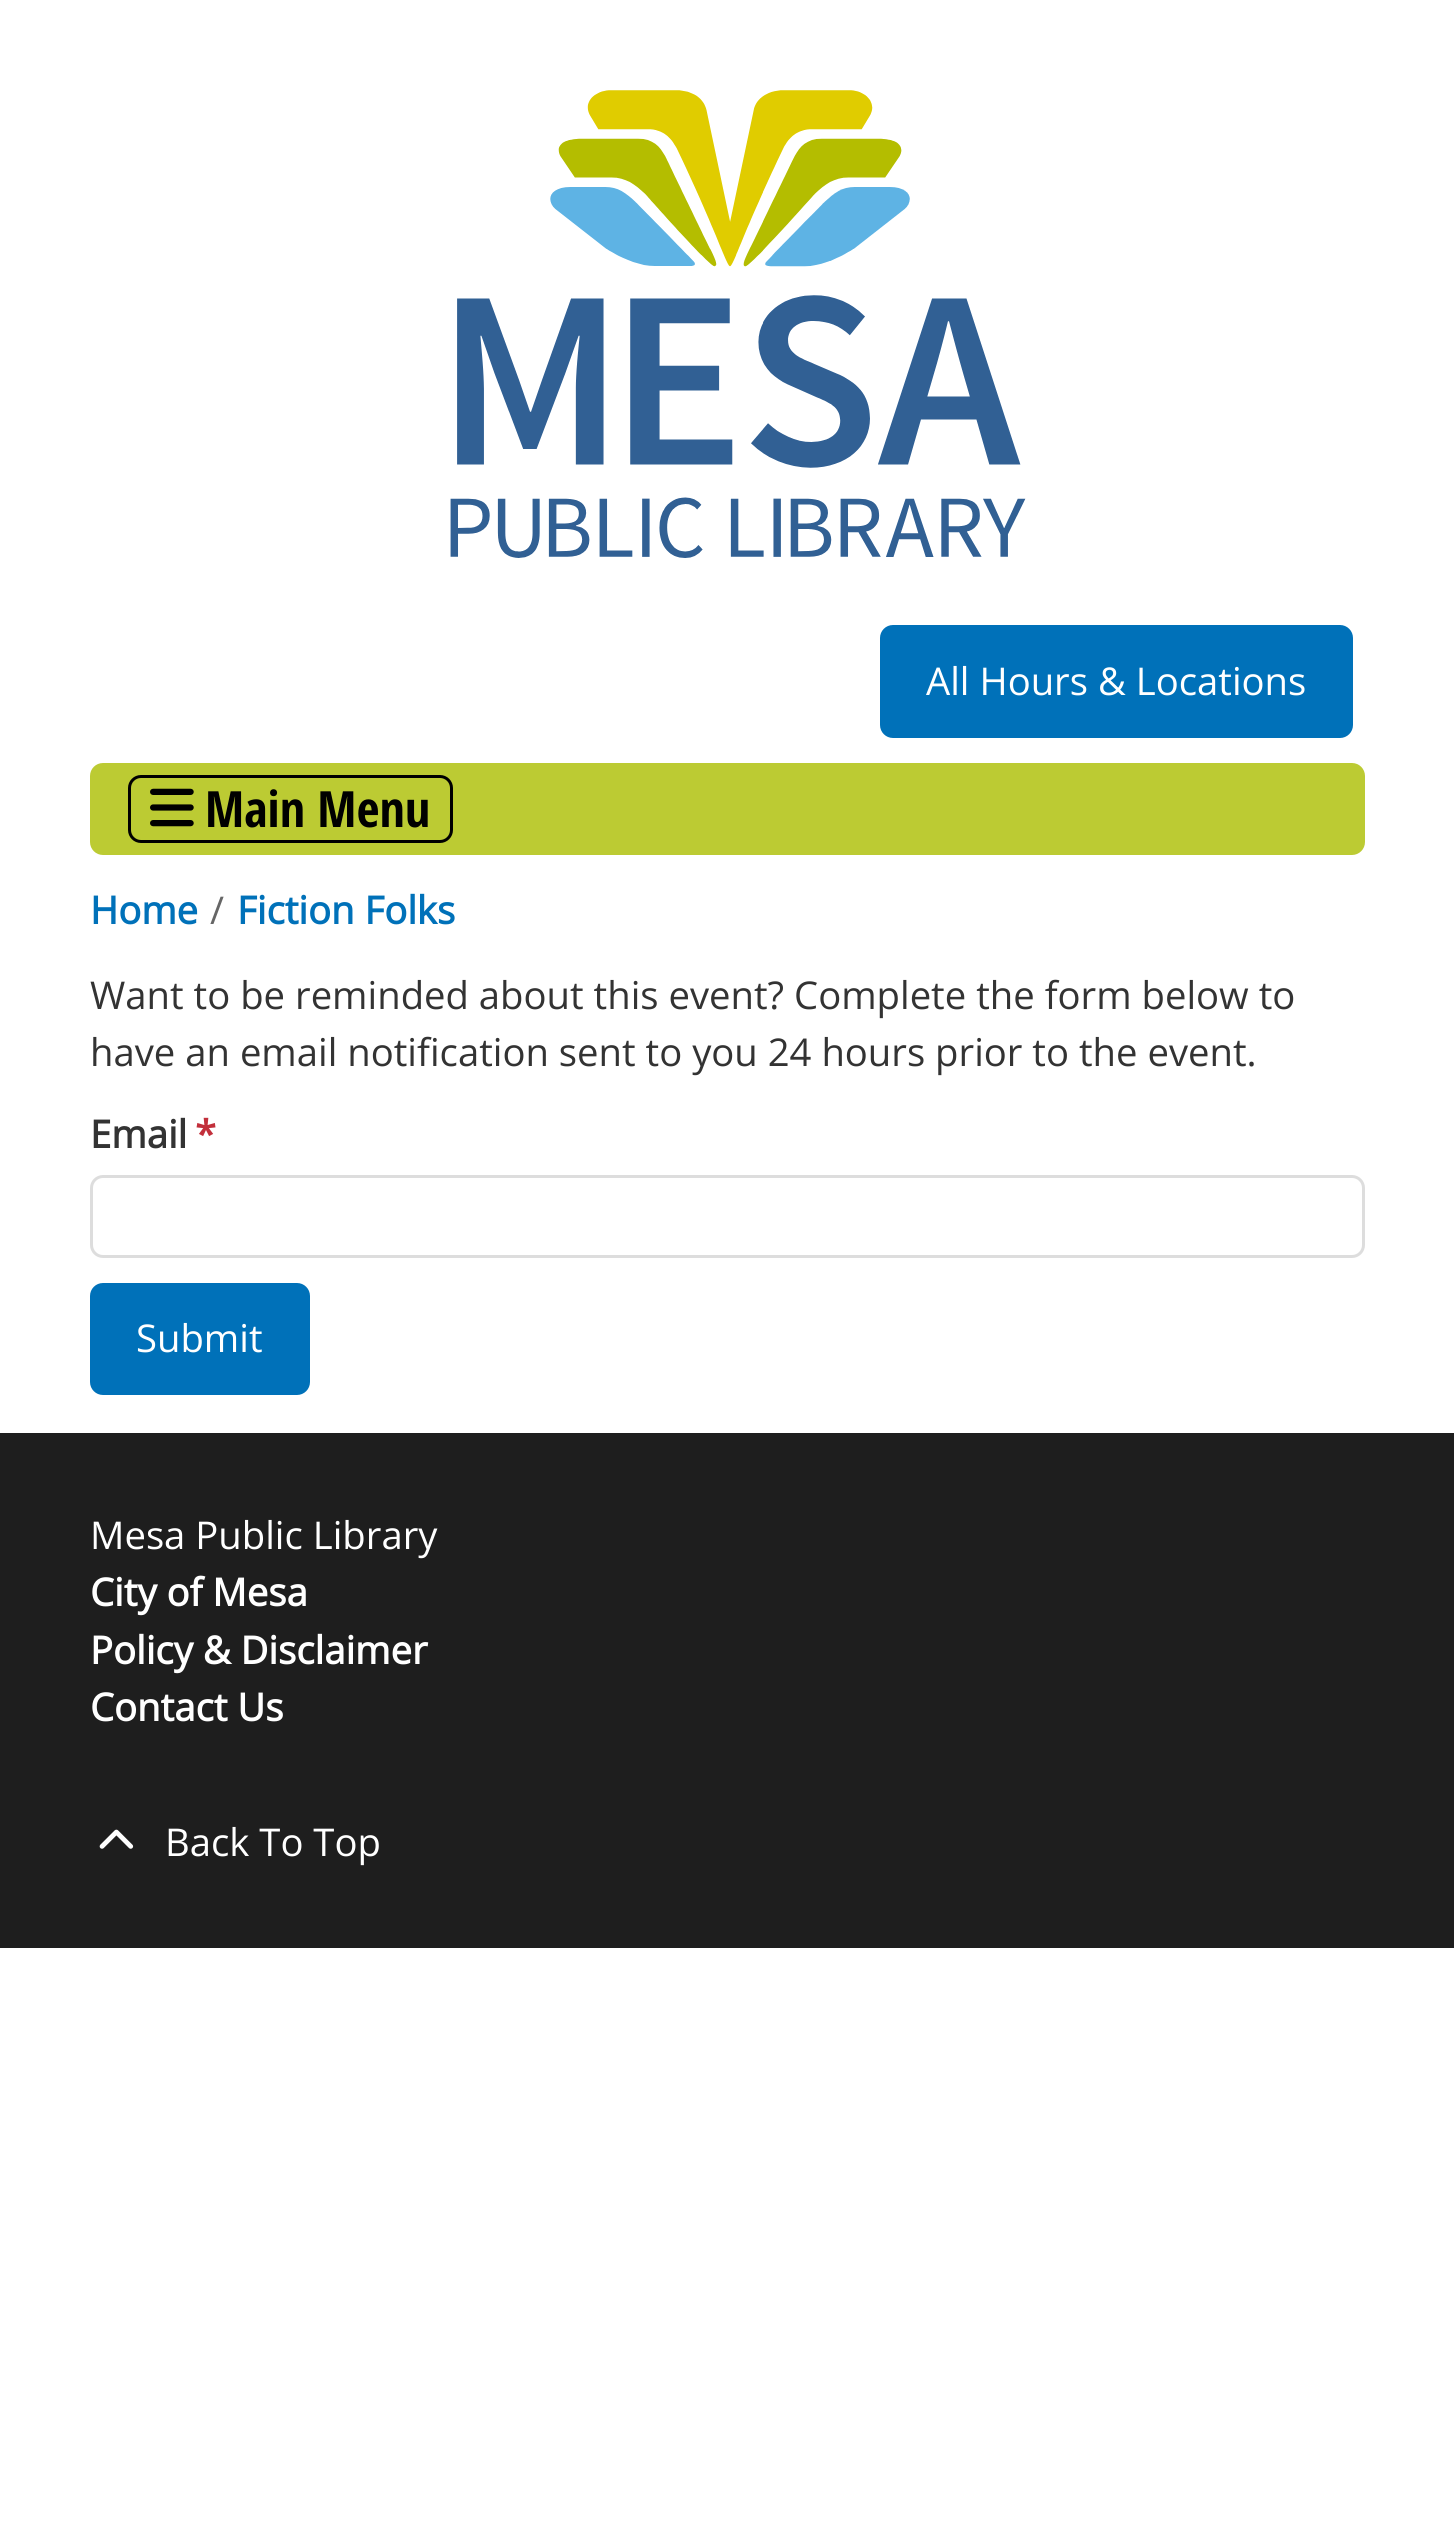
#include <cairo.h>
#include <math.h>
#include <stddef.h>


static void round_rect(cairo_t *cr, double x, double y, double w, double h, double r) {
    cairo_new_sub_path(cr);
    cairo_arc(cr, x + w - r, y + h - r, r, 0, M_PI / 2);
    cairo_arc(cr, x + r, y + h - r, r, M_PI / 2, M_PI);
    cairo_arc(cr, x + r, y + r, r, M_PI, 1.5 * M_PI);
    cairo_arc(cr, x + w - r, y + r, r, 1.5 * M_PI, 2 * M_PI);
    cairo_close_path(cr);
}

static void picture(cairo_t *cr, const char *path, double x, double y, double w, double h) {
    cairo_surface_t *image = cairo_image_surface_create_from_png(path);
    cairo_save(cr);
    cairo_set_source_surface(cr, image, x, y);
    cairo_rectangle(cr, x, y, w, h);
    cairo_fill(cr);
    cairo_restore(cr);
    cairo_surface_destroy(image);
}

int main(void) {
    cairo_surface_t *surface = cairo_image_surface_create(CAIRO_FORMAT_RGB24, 1454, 2539);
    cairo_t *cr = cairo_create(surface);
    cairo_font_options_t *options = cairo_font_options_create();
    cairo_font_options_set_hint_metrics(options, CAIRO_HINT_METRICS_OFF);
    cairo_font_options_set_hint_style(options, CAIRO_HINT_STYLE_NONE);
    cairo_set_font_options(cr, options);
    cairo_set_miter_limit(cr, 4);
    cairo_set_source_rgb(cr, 1, 1, 1);
    cairo_paint(cr);
    picture(cr, "img1.png", 450, 90, 576, 468);
    cairo_set_source_rgb(cr, 0, 0.443, 0.725);
    round_rect(cr, 881.5, 626.5, 470, 110, 11.5);
    cairo_fill_preserve(cr);
    cairo_set_line_width(cr, 3);
    cairo_stroke(cr);
    cairo_select_font_face(cr, "Open Sans", CAIRO_FONT_SLANT_NORMAL, CAIRO_FONT_WEIGHT_NORMAL);
    cairo_set_font_size(cr, 38.25);
    cairo_set_source_rgb(cr, 1, 1, 1);
    cairo_move_to(cr, 926, 695);
    cairo_show_text(cr, "All Hours & Locations");
    cairo_set_source_rgb(cr, 0.737, 0.796, 0.2);
    round_rect(cr, 90, 763, 1275, 92, 13);
    cairo_fill(cr);
    round_rect(cr, 129.5, 776.5, 322, 65, 11.5);
    cairo_set_source_rgb(cr, 0, 0, 0);
    cairo_stroke(cr);
    picture(cr, "img2.png", 150, 788, 44, 39);
    cairo_select_font_face(cr, "Open Sans Condensed", CAIRO_FONT_SLANT_NORMAL, CAIRO_FONT_WEIGHT_BOLD);
    cairo_set_font_size(cr, 50);
    cairo_move_to(cr, 205, 827);
    cairo_show_text(cr, "Main Menu");
    cairo_select_font_face(cr, "Open Sans", CAIRO_FONT_SLANT_NORMAL, CAIRO_FONT_WEIGHT_BOLD);
    cairo_set_font_size(cr, 38.25);
    cairo_set_source_rgb(cr, 0, 0.443, 0.725);
    cairo_move_to(cr, 90, 924);
    cairo_show_text(cr, "Home");
    cairo_select_font_face(cr, "Open Sans", CAIRO_FONT_SLANT_NORMAL, CAIRO_FONT_WEIGHT_NORMAL);
    cairo_set_source_rgb(cr, 0.4, 0.4, 0.4);
    cairo_move_to(cr, 210, 924);
    cairo_show_text(cr, "/");
    cairo_select_font_face(cr, "Open Sans", CAIRO_FONT_SLANT_NORMAL, CAIRO_FONT_WEIGHT_BOLD);
    cairo_set_source_rgb(cr, 0, 0.443, 0.725);
    cairo_move_to(cr, 237, 924);
    cairo_show_text(cr, "Fiction Folks");
    cairo_select_font_face(cr, "Open Sans", CAIRO_FONT_SLANT_NORMAL, CAIRO_FONT_WEIGHT_NORMAL);
    cairo_set_source_rgb(cr, 0.2, 0.2, 0.2);
    cairo_move_to(cr, 90, 1009);
    cairo_show_text(cr, "Want to be reminded about this event? Complete the form below to");
    cairo_move_to(cr, 90, 1066);
    cairo_show_text(cr, "have an email notification sent to you 24 hours prior to the event.");
    cairo_select_font_face(cr, "Open Sans", CAIRO_FONT_SLANT_NORMAL, CAIRO_FONT_WEIGHT_BOLD);
    cairo_move_to(cr, 90, 1148);
    cairo_show_text(cr, "Email");
    cairo_set_source_rgb(cr, 0.761, 0.184, 0.231);
    cairo_move_to(cr, 195, 1148);
    cairo_show_text(cr, "*");
    round_rect(cr, 91.5, 1176.5, 1272, 80, 11.5);
    cairo_set_source_rgb(cr, 0.867, 0.867, 0.867);
    cairo_stroke(cr);
    cairo_set_source_rgb(cr, 0, 0.443, 0.725);
    round_rect(cr, 91.5, 1284.5, 217, 109, 11.5);
    cairo_fill_preserve(cr);
    cairo_stroke(cr);
    cairo_select_font_face(cr, "Open Sans", CAIRO_FONT_SLANT_NORMAL, CAIRO_FONT_WEIGHT_NORMAL);
    cairo_set_source_rgb(cr, 1, 1, 1);
    cairo_move_to(cr, 136, 1352);
    cairo_show_text(cr, "Submit");
    cairo_set_source_rgb(cr, 0.118, 0.118, 0.118);
    cairo_rectangle(cr, 0, 1433, 1454, 515);
    cairo_fill(cr);
    cairo_set_source_rgb(cr, 1, 1, 1);
    cairo_move_to(cr, 90, 1549);
    cairo_show_text(cr, "Mesa Public Library");
    cairo_select_font_face(cr, "Open Sans", CAIRO_FONT_SLANT_NORMAL, CAIRO_FONT_WEIGHT_BOLD);
    cairo_move_to(cr, 90, 1606);
    cairo_show_text(cr, "City of Mesa");
    cairo_move_to(cr, 90, 1664);
    cairo_show_text(cr, "Policy & Disclaimer");
    cairo_move_to(cr, 90, 1721);
    cairo_show_text(cr, "Contact Us");
    picture(cr, "img3.png", 99, 1829, 35, 20);
    cairo_select_font_face(cr, "Open Sans", CAIRO_FONT_SLANT_NORMAL, CAIRO_FONT_WEIGHT_NORMAL);
    cairo_move_to(cr, 165, 1856);
    cairo_show_text(cr, "Back To Top");
    cairo_surface_write_to_png(surface, "page.png");
    cairo_font_options_destroy(options);
    cairo_destroy(cr);
    cairo_surface_destroy(surface);
    return 0;
}
